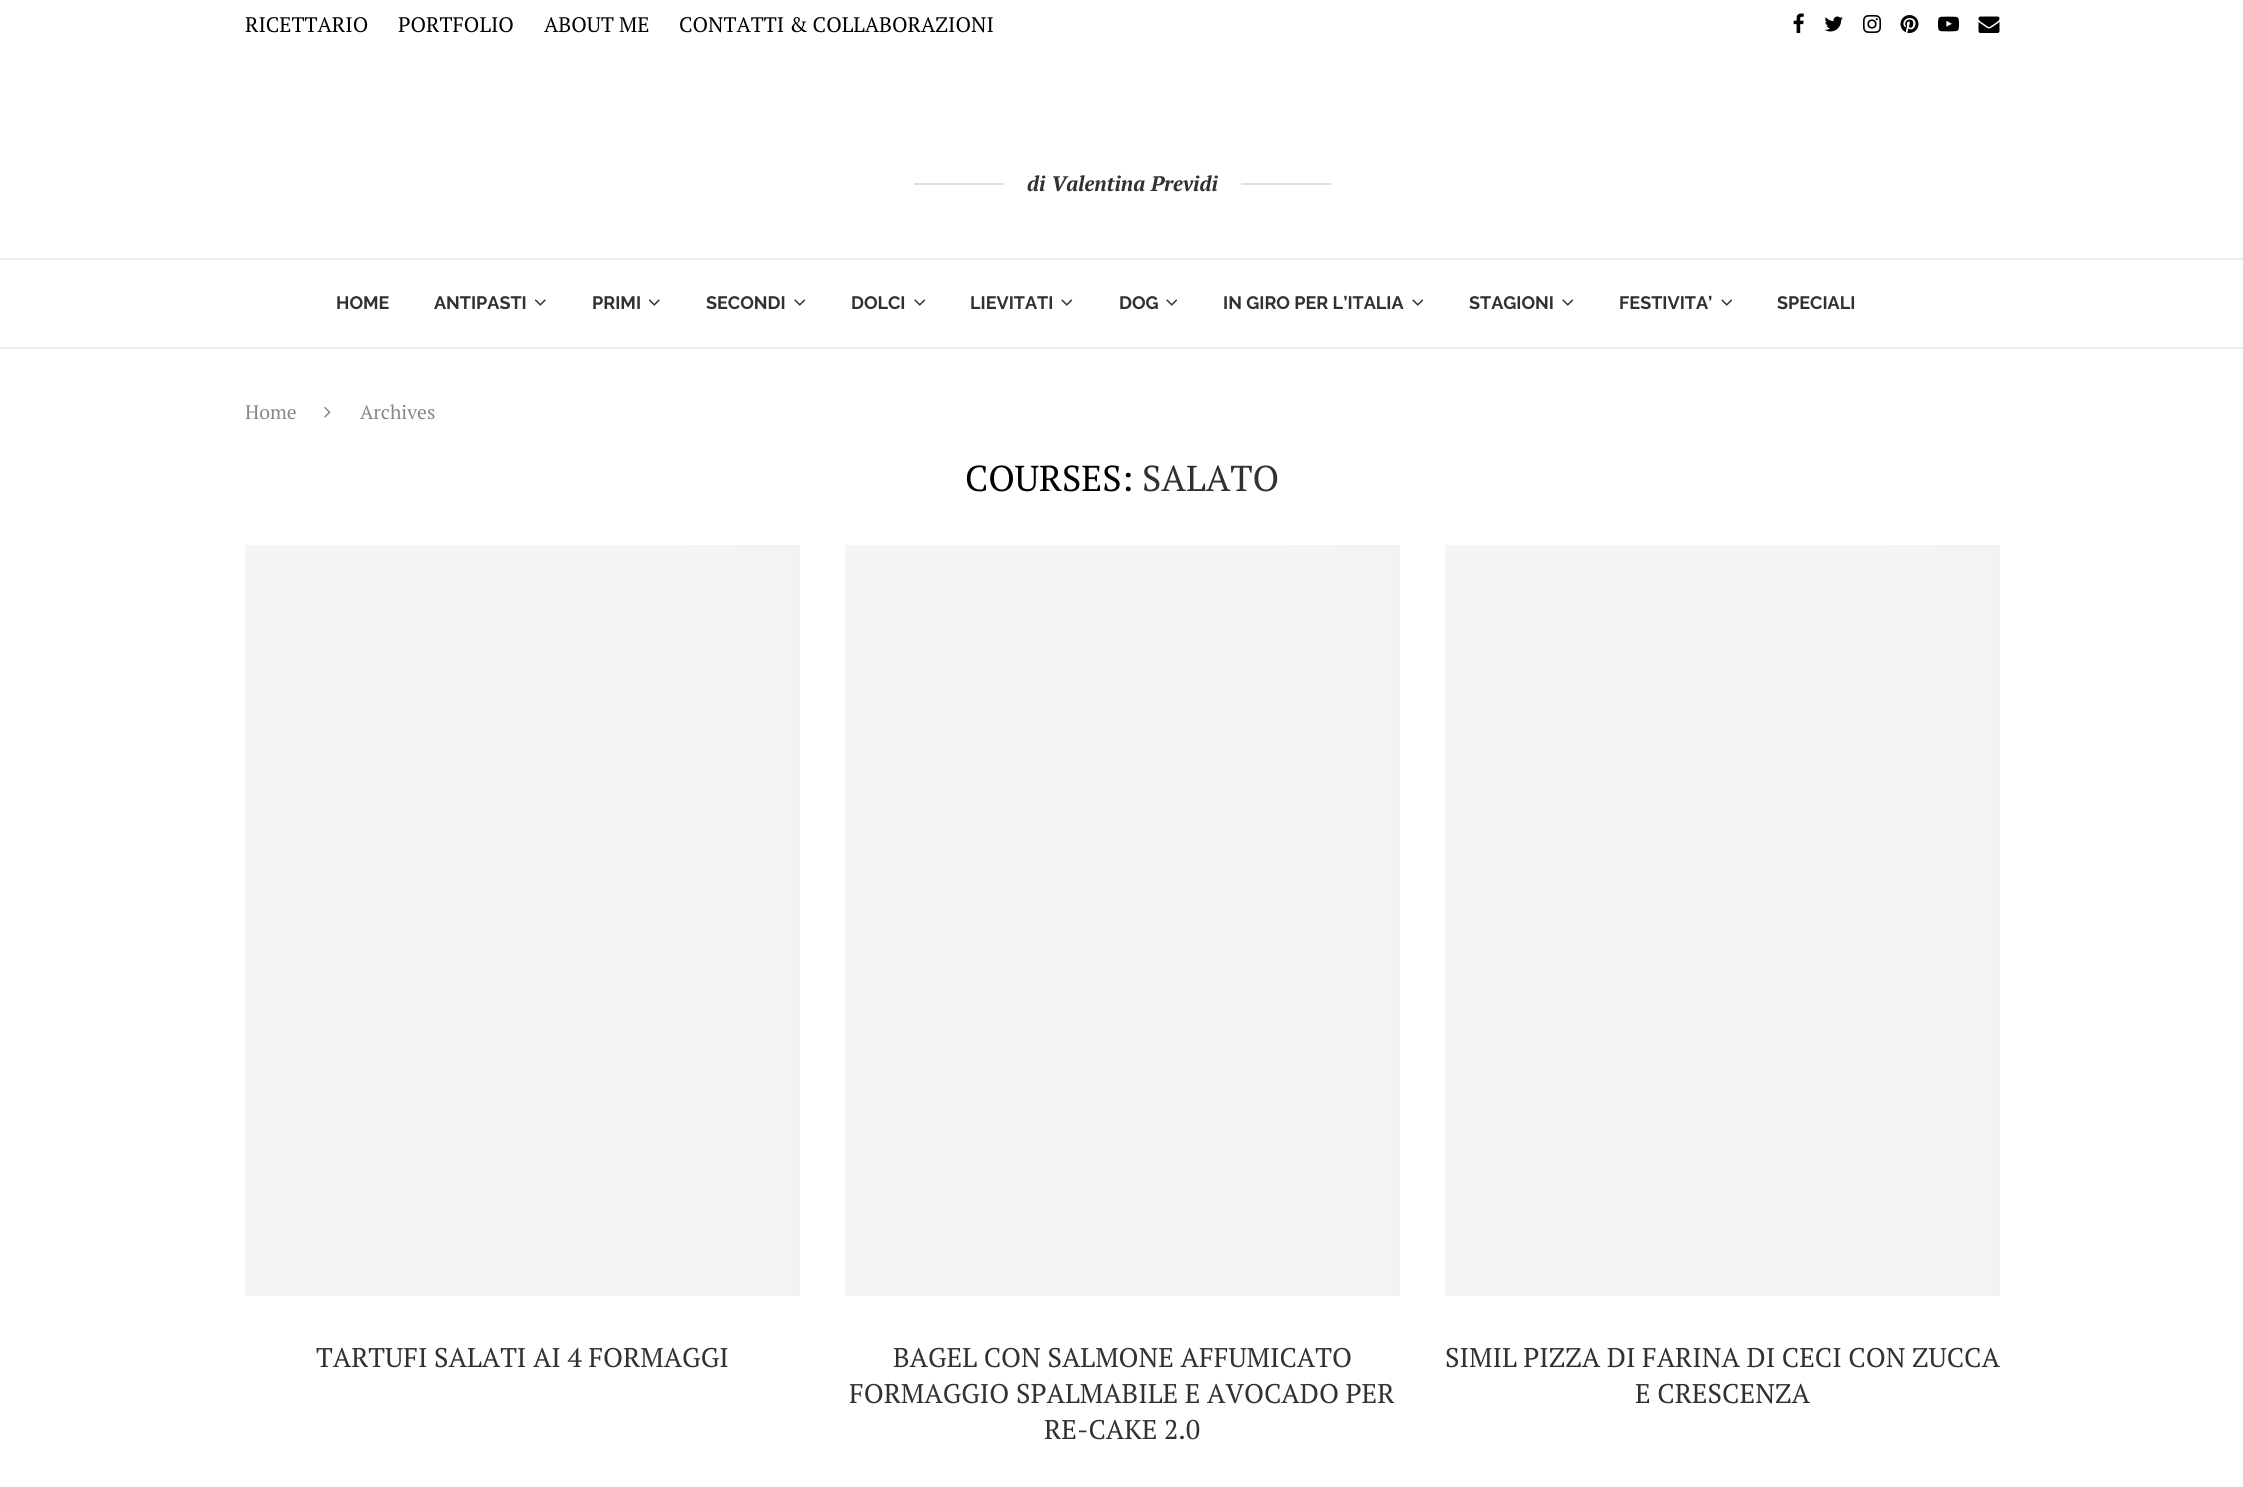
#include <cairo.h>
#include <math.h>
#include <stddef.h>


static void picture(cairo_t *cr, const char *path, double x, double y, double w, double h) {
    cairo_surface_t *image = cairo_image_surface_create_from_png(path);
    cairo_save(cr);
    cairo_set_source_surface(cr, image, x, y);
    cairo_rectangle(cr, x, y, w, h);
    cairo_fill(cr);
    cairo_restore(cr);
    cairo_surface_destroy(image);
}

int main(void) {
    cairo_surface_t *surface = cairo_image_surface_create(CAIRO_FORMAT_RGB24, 2243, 1487);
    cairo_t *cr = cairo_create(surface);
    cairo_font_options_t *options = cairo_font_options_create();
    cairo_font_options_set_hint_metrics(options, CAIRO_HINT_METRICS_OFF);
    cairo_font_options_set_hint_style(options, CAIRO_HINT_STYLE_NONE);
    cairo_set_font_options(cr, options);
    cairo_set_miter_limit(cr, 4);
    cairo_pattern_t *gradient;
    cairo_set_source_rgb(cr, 1, 1, 1);
    cairo_paint(cr);
    cairo_select_font_face(cr, "PT Serif", CAIRO_FONT_SLANT_NORMAL, CAIRO_FONT_WEIGHT_NORMAL);
    cairo_set_font_size(cr, 21);
    cairo_set_source_rgb(cr, 0, 0, 0);
    cairo_move_to(cr, 245, 32);
    cairo_show_text(cr, "RICETTARIO");
    cairo_move_to(cr, 398, 32);
    cairo_show_text(cr, "PORTFOLIO");
    cairo_move_to(cr, 544, 32);
    cairo_show_text(cr, "ABOUT ME");
    cairo_move_to(cr, 679, 32);
    cairo_show_text(cr, "CONTATTI & COLLABORAZIONI");
    picture(cr, "img1.png", 1793, 13, 11, 20);
    picture(cr, "img2.png", 1824, 16, 19, 16);
    picture(cr, "img3.png", 1863, 15, 18, 18);
    picture(cr, "img4.png", 1900, 15, 19, 18);
    picture(cr, "img5.png", 1938, 16, 21, 16);
    picture(cr, "img6.png", 1978, 16, 22, 17);
    cairo_set_source_rgb(cr, 0.871, 0.871, 0.871);
    cairo_rectangle(cr, 914, 183, 90, 2);
    cairo_fill(cr);
    cairo_select_font_face(cr, "PT Serif", CAIRO_FONT_SLANT_ITALIC, CAIRO_FONT_WEIGHT_BOLD);
    cairo_set_source_rgb(cr, 0.192, 0.192, 0.192);
    cairo_move_to(cr, 1027, 191);
    cairo_show_text(cr, "di Valentina Previdi");
    cairo_set_source_rgb(cr, 0.871, 0.871, 0.871);
    cairo_rectangle(cr, 1241, 183, 90, 2);
    cairo_fill(cr);
    cairo_set_source_rgb(cr, 0.925, 0.925, 0.925);
    cairo_rectangle(cr, 0, 258, 2243, 2);
    cairo_fill(cr);
    cairo_rectangle(cr, 0, 347, 2243, 2);
    cairo_fill(cr);
    cairo_select_font_face(cr, "Raleway", CAIRO_FONT_SLANT_NORMAL, CAIRO_FONT_WEIGHT_BOLD);
    cairo_set_font_size(cr, 18);
    cairo_set_source_rgb(cr, 0.192, 0.192, 0.192);
    cairo_move_to(cr, 336, 309);
    cairo_show_text(cr, "HOME");
    cairo_move_to(cr, 434, 309);
    cairo_show_text(cr, "ANTIPASTI");
    picture(cr, "img7.png", 534, 299, 12, 7);
    cairo_move_to(cr, 592, 309);
    cairo_show_text(cr, "PRIMI");
    picture(cr, "img7.png", 648, 299, 12, 7);
    cairo_move_to(cr, 706, 309);
    cairo_show_text(cr, "SECONDI");
    picture(cr, "img8.png", 794, 299, 12, 7);
    cairo_move_to(cr, 851, 309);
    cairo_show_text(cr, "DOLCI");
    picture(cr, "img8.png", 914, 299, 12, 7);
    cairo_move_to(cr, 970, 309);
    cairo_show_text(cr, "LIEVITATI");
    picture(cr, "img8.png", 1061, 299, 12, 7);
    cairo_move_to(cr, 1119, 309);
    cairo_show_text(cr, "DOG");
    picture(cr, "img8.png", 1166, 299, 12, 7);
    cairo_move_to(cr, 1223, 309);
    cairo_show_text(cr, "IN GIRO PER L’ITALIA");
    picture(cr, "img8.png", 1412, 299, 12, 7);
    cairo_move_to(cr, 1469, 309);
    cairo_show_text(cr, "STAGIONI");
    picture(cr, "img8.png", 1562, 299, 12, 7);
    cairo_move_to(cr, 1619, 309);
    cairo_show_text(cr, "FESTIVITA’");
    picture(cr, "img8.png", 1721, 299, 12, 7);
    cairo_move_to(cr, 1777, 309);
    cairo_show_text(cr, "SPECIALI");
    cairo_select_font_face(cr, "PT Serif", CAIRO_FONT_SLANT_NORMAL, CAIRO_FONT_WEIGHT_NORMAL);
    cairo_set_font_size(cr, 19.5);
    cairo_set_source_rgb(cr, 0.533, 0.533, 0.533);
    cairo_move_to(cr, 245, 419);
    cairo_show_text(cr, "Home");
    picture(cr, "img9.png", 324, 406, 7, 12);
    cairo_move_to(cr, 360, 419);
    cairo_show_text(cr, "Archives");
    cairo_set_font_size(cr, 36);
    cairo_set_source_rgb(cr, 0, 0, 0);
    cairo_move_to(cr, 965, 491);
    cairo_show_text(cr, "COURSES:");
    cairo_set_source_rgb(cr, 0.192, 0.192, 0.192);
    cairo_move_to(cr, 1142, 491);
    cairo_show_text(cr, "SALATO");
    gradient = cairo_pattern_create_linear(1197, 920, -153, 920);
    cairo_pattern_add_color_stop_rgba(gradient, 0, 0.961, 0.961, 0.961, 1);
    cairo_pattern_add_color_stop_rgba(gradient, 0.15, 0.937, 0.937, 0.937, 1);
    cairo_pattern_add_color_stop_rgba(gradient, 0.4, 0.961, 0.961, 0.961, 1);
    cairo_pattern_add_color_stop_rgba(gradient, 1, 0.961, 0.961, 0.961, 1);
    cairo_set_source(cr, gradient);
    cairo_pattern_destroy(gradient);
    cairo_rectangle(cr, 245, 545, 555, 751);
    cairo_fill(cr);
    cairo_set_font_size(cr, 27);
    cairo_set_source_rgb(cr, 0.192, 0.192, 0.192);
    cairo_move_to(cr, 316, 1367);
    cairo_show_text(cr, "TARTUFI SALATI AI 4 FORMAGGI");
    gradient = cairo_pattern_create_linear(1797, 920, 447, 920);
    cairo_pattern_add_color_stop_rgba(gradient, 0, 0.961, 0.961, 0.961, 1);
    cairo_pattern_add_color_stop_rgba(gradient, 0.15, 0.937, 0.937, 0.937, 1);
    cairo_pattern_add_color_stop_rgba(gradient, 0.4, 0.961, 0.961, 0.961, 1);
    cairo_pattern_add_color_stop_rgba(gradient, 1, 0.961, 0.961, 0.961, 1);
    cairo_set_source(cr, gradient);
    cairo_pattern_destroy(gradient);
    cairo_rectangle(cr, 845, 545, 555, 751);
    cairo_fill(cr);
    cairo_set_source_rgb(cr, 0.192, 0.192, 0.192);
    cairo_move_to(cr, 893, 1367);
    cairo_show_text(cr, "BAGEL CON SALMONE AFFUMICATO");
    cairo_move_to(cr, 849, 1403);
    cairo_show_text(cr, "FORMAGGIO SPALMABILE E AVOCADO PER");
    cairo_move_to(cr, 1044, 1439);
    cairo_show_text(cr, "RE-CAKE 2.0");
    gradient = cairo_pattern_create_linear(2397, 920, 1047, 920);
    cairo_pattern_add_color_stop_rgba(gradient, 0, 0.961, 0.961, 0.961, 1);
    cairo_pattern_add_color_stop_rgba(gradient, 0.15, 0.937, 0.937, 0.937, 1);
    cairo_pattern_add_color_stop_rgba(gradient, 0.4, 0.961, 0.961, 0.961, 1);
    cairo_pattern_add_color_stop_rgba(gradient, 1, 0.961, 0.961, 0.961, 1);
    cairo_set_source(cr, gradient);
    cairo_pattern_destroy(gradient);
    cairo_rectangle(cr, 1445, 545, 555, 751);
    cairo_fill(cr);
    cairo_set_source_rgb(cr, 0.192, 0.192, 0.192);
    cairo_move_to(cr, 1445, 1367);
    cairo_show_text(cr, "SIMIL PIZZA DI FARINA DI CECI CON ZUCCA");
    cairo_move_to(cr, 1635, 1403);
    cairo_show_text(cr, "E CRESCENZA");
    cairo_surface_write_to_png(surface, "page.png");
    cairo_font_options_destroy(options);
    cairo_destroy(cr);
    cairo_surface_destroy(surface);
    return 0;
}
